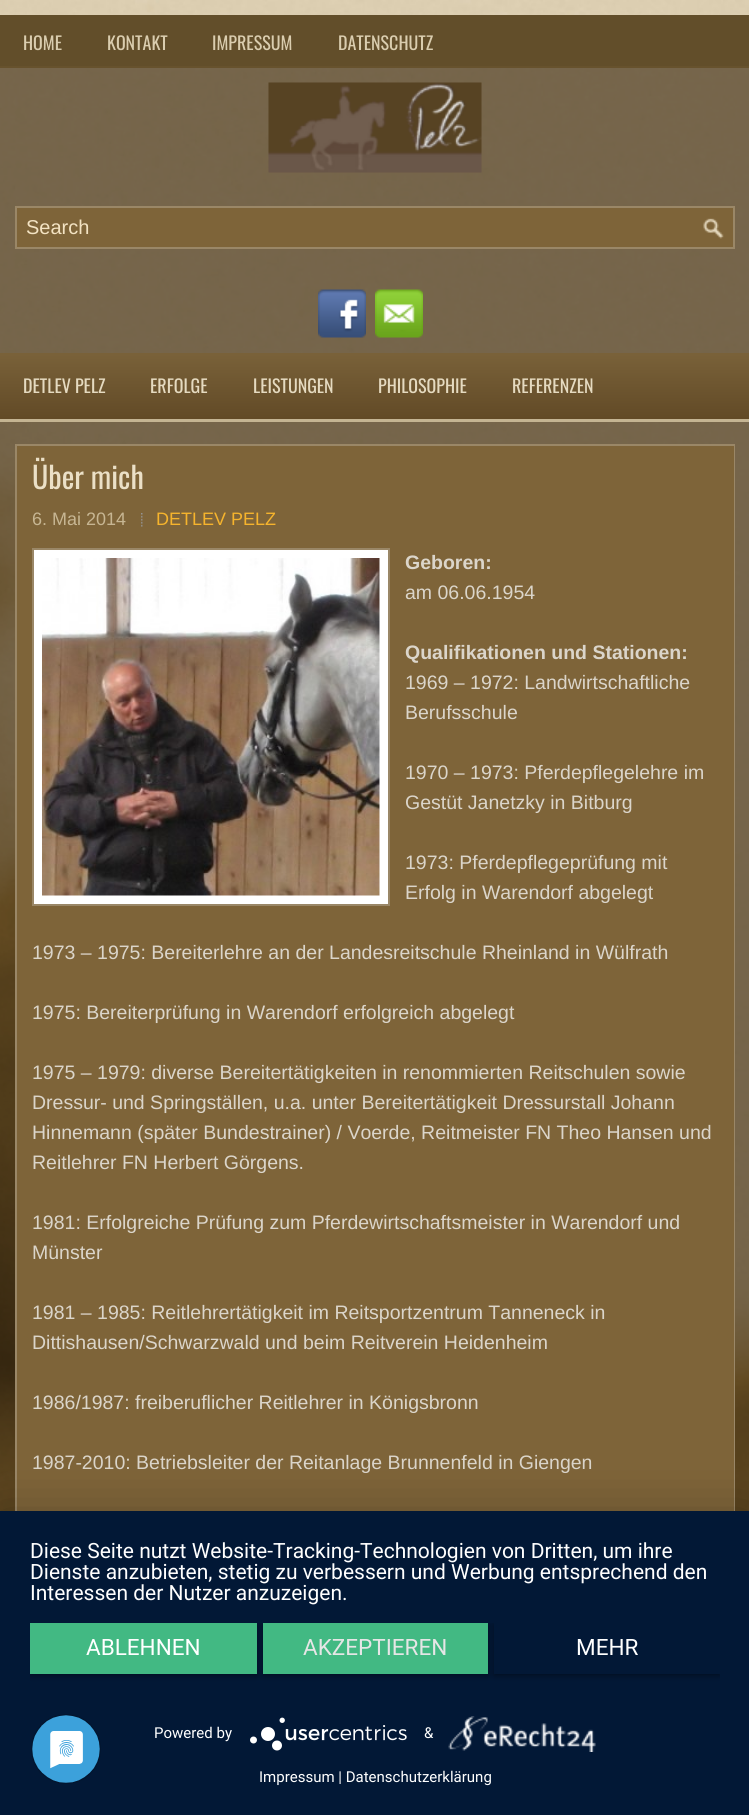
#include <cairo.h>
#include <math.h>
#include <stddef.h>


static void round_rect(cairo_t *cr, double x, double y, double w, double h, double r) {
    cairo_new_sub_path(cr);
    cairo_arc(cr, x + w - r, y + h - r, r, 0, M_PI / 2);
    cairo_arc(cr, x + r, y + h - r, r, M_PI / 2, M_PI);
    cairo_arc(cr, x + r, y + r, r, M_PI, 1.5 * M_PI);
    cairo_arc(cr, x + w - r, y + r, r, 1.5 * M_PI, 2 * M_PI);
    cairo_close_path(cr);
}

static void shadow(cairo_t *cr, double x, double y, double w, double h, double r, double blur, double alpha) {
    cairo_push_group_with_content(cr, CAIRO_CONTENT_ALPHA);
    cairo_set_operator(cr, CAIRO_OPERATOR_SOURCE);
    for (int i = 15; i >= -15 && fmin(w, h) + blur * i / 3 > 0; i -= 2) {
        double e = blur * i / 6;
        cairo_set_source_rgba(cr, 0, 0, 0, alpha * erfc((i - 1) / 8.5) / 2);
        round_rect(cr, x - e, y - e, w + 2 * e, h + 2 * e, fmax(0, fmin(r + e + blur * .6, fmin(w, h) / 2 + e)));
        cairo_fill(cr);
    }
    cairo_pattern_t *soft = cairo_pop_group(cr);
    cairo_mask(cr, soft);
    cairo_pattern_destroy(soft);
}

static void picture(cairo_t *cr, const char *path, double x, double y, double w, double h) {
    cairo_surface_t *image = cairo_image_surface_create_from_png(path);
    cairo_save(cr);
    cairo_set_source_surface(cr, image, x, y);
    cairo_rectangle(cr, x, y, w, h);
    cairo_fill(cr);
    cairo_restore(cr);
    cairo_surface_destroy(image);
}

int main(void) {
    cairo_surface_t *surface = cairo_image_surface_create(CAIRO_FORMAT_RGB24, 749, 1815);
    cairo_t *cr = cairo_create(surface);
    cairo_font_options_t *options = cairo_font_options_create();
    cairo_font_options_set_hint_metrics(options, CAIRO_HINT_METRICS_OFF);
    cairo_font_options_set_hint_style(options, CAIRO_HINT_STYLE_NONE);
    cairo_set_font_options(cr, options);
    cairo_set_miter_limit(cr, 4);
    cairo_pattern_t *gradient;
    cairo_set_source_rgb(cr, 1, 1, 1);
    cairo_paint(cr);
    picture(cr, "img1.png", 0, 0, 749, 1511);
    cairo_set_source_rgb(cr, 0.384, 0.306, 0.165);
    cairo_rectangle(cr, 0, 15, 749, 51);
    cairo_fill(cr);
    cairo_set_source_rgb(cr, 0.404, 0.322, 0.176);
    cairo_rectangle(cr, 0, 66, 749, 2);
    cairo_fill(cr);
    cairo_select_font_face(cr, "Oswald", CAIRO_FONT_SLANT_NORMAL, CAIRO_FONT_WEIGHT_NORMAL);
    cairo_set_font_size(cr, 18);
    cairo_set_source_rgb(cr, 0.855, 0.804, 0.686);
    cairo_move_to(cr, 23, 50);
    cairo_show_text(cr, "HOME");
    cairo_move_to(cr, 107, 50);
    cairo_show_text(cr, "KONTAKT");
    cairo_move_to(cr, 212, 50);
    cairo_show_text(cr, "IMPRESSUM");
    cairo_move_to(cr, 338, 50);
    cairo_show_text(cr, "DATENSCHUTZ");
    cairo_set_source_rgba(cr, 0.196, 0.125, 0.027, 0.6);
    cairo_rectangle(cr, 0, 68, 749, 285);
    cairo_fill(cr);
    picture(cr, "img2.png", 268, 82, 214, 91);
    cairo_set_source_rgb(cr, 0.494, 0.392, 0.224);
    cairo_rectangle(cr, 17, 208, 716, 39);
    cairo_fill(cr);
    picture(cr, "img3.png", 703, 218, 21, 21);
    cairo_rectangle(cr, 16, 207, 718, 41);
    cairo_set_source_rgb(cr, 0.604, 0.529, 0.404);
    cairo_stroke(cr);
    cairo_select_font_face(cr, "Liberation Sans", CAIRO_FONT_SLANT_NORMAL, CAIRO_FONT_WEIGHT_NORMAL);
    cairo_set_font_size(cr, 20);
    cairo_set_source_rgb(cr, 0.953, 0.89, 0.765);
    cairo_move_to(cr, 26, 234);
    cairo_show_text(cr, "Search");
    picture(cr, "img4.png", 318, 289, 48, 49);
    picture(cr, "img5.png", 375, 289, 48, 49);
    gradient = cairo_pattern_create_linear(375, 352, 375, 419);
    cairo_pattern_add_color_stop_rgba(gradient, 0, 0.478, 0.384, 0.227, 1);
    cairo_pattern_add_color_stop_rgba(gradient, 1, 0.384, 0.29, 0.149, 1);
    cairo_set_source(cr, gradient);
    cairo_pattern_destroy(gradient);
    cairo_rectangle(cr, 0, 353, 749, 66);
    cairo_fill(cr);
    cairo_set_source_rgb(cr, 0.769, 0.706, 0.573);
    cairo_rectangle(cr, 0, 419, 749, 3);
    cairo_fill(cr);
    cairo_select_font_face(cr, "Oswald", CAIRO_FONT_SLANT_NORMAL, CAIRO_FONT_WEIGHT_NORMAL);
    cairo_set_font_size(cr, 18);
    cairo_set_source_rgb(cr, 0.898, 0.855, 0.753);
    cairo_move_to(cr, 23, 393);
    cairo_show_text(cr, "DETLEV PELZ");
    cairo_move_to(cr, 150, 393);
    cairo_show_text(cr, "ERFOLGE");
    cairo_move_to(cr, 253, 393);
    cairo_show_text(cr, "LEISTUNGEN");
    cairo_move_to(cr, 378, 393);
    cairo_show_text(cr, "PHILOSOPHIE");
    cairo_move_to(cr, 512, 393);
    cairo_show_text(cr, "REFERENZEN");
    cairo_set_source_rgba(cr, 0.196, 0.125, 0.027, 0.6);
    cairo_rectangle(cr, 0, 422, 749, 1089);
    cairo_fill(cr);
    cairo_set_source_rgb(cr, 0.494, 0.392, 0.224);
    cairo_rectangle(cr, 17, 446, 717, 1065);
    cairo_fill(cr);
    cairo_set_source_rgb(cr, 0.604, 0.529, 0.404);
    cairo_rectangle(cr, 15, 444, 720, 2);
    cairo_fill(cr);
    cairo_rectangle(cr, 734, 444, 1, 1067);
    cairo_fill(cr);
    cairo_rectangle(cr, 15, 444, 2, 1067);
    cairo_fill(cr);
    cairo_set_font_size(cr, 30);
    cairo_set_source_rgb(cr, 0.918, 0.878, 0.78);
    cairo_move_to(cr, 32, 489);
    cairo_show_text(cr, "Über mich");
    cairo_select_font_face(cr, "Liberation Sans", CAIRO_FONT_SLANT_NORMAL, CAIRO_FONT_WEIGHT_NORMAL);
    cairo_set_font_size(cr, 18);
    cairo_set_source_rgb(cr, 0.78, 0.714, 0.576);
    cairo_move_to(cr, 32, 525);
    cairo_show_text(cr, "6. Mai 2014");
    picture(cr, "img6.png", 141, 513, 2, 14);
    cairo_set_source_rgb(cr, 0.961, 0.706, 0.176);
    cairo_move_to(cr, 156, 525);
    cairo_show_text(cr, "DETLEV PELZ");
    cairo_set_source_rgb(cr, 1, 1, 1);
    cairo_rectangle(cr, 33, 549, 356, 356);
    cairo_fill_preserve(cr);
    cairo_set_source_rgb(cr, 0.604, 0.529, 0.404);
    cairo_stroke(cr);
    picture(cr, "img7.png", 42, 558, 338, 338);
    cairo_select_font_face(cr, "Liberation Sans", CAIRO_FONT_SLANT_NORMAL, CAIRO_FONT_WEIGHT_BOLD);
    cairo_set_font_size(cr, 19.5);
    cairo_set_source_rgb(cr, 0.859, 0.835, 0.792);
    cairo_move_to(cr, 405, 569);
    cairo_show_text(cr, "Geboren:");
    cairo_select_font_face(cr, "Liberation Sans", CAIRO_FONT_SLANT_NORMAL, CAIRO_FONT_WEIGHT_NORMAL);
    cairo_move_to(cr, 405, 599);
    cairo_show_text(cr, "am 06.06.1954");
    cairo_select_font_face(cr, "Liberation Sans", CAIRO_FONT_SLANT_NORMAL, CAIRO_FONT_WEIGHT_BOLD);
    cairo_move_to(cr, 405, 659);
    cairo_show_text(cr, "Qualifikationen und Stationen:");
    cairo_select_font_face(cr, "Liberation Sans", CAIRO_FONT_SLANT_NORMAL, CAIRO_FONT_WEIGHT_NORMAL);
    cairo_move_to(cr, 405, 689);
    cairo_show_text(cr, "1969 – 1972: Landwirtschaftliche");
    cairo_move_to(cr, 405, 719);
    cairo_show_text(cr, "Berufsschule");
    cairo_move_to(cr, 405, 779);
    cairo_show_text(cr, "1970 – 1973: Pferdepflegelehre im");
    cairo_move_to(cr, 405, 809);
    cairo_show_text(cr, "Gestüt Janetzky in Bitburg");
    cairo_move_to(cr, 405, 869);
    cairo_show_text(cr, "1973: Pferdepflegeprüfung mit");
    cairo_move_to(cr, 405, 899);
    cairo_show_text(cr, "Erfolg in Warendorf abgelegt");
    cairo_move_to(cr, 32, 959);
    cairo_show_text(cr, "1973 – 1975: Bereiterlehre an der Landesreitschule Rheinland in Wülfrath");
    cairo_move_to(cr, 32, 1019);
    cairo_show_text(cr, "1975: Bereiterprüfung in Warendorf erfolgreich abgelegt");
    cairo_move_to(cr, 32, 1079);
    cairo_show_text(cr, "1975 – 1979: diverse Bereitertätigkeiten in renommierten Reitschulen sowie");
    cairo_move_to(cr, 32, 1109);
    cairo_show_text(cr, "Dressur- und Springställen, u.a. unter Bereitertätigkeit Dressurstall Johann");
    cairo_move_to(cr, 32, 1139);
    cairo_show_text(cr, "Hinnemann (später Bundestrainer) / Voerde, Reitmeister FN Theo Hansen und");
    cairo_move_to(cr, 32, 1169);
    cairo_show_text(cr, "Reitlehrer FN Herbert Görgens.");
    cairo_move_to(cr, 32, 1229);
    cairo_show_text(cr, "1981: Erfolgreiche Prüfung zum Pferdewirtschaftsmeister in Warendorf und");
    cairo_move_to(cr, 32, 1259);
    cairo_show_text(cr, "Münster");
    cairo_move_to(cr, 32, 1319);
    cairo_show_text(cr, "1981 – 1985: Reitlehrertätigkeit im Reitsportzentrum Tanneneck in");
    cairo_move_to(cr, 32, 1349);
    cairo_show_text(cr, "Dittishausen/Schwarzwald und beim Reitverein Heidenheim");
    cairo_move_to(cr, 32, 1409);
    cairo_show_text(cr, "1986/1987: freiberuflicher Reitlehrer in Königsbronn");
    cairo_move_to(cr, 32, 1469);
    cairo_show_text(cr, "1987-2010: Betriebsleiter der Reitanlage Brunnenfeld in Giengen");
    cairo_set_source_rgb(cr, 0, 0, 0);
    shadow(cr, 0, 1520, 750, 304, 0, 27, 0.3);
    cairo_set_source_rgb(cr, 0.008, 0.094, 0.212);
    cairo_rectangle(cr, 0, 1511, 749, 304);
    cairo_fill(cr);
    cairo_select_font_face(cr, "Roboto", CAIRO_FONT_SLANT_NORMAL, CAIRO_FONT_WEIGHT_NORMAL);
    cairo_set_font_size(cr, 21);
    cairo_set_source_rgb(cr, 1, 1, 1);
    cairo_move_to(cr, 30, 1558);
    cairo_show_text(cr, "Diese Seite nutzt Website-Tracking-Technologien von Dritten, um ihre");
    cairo_move_to(cr, 30, 1579);
    cairo_show_text(cr, "Dienste anzubieten, stetig zu verbessern und Werbung entsprechend den");
    cairo_move_to(cr, 30, 1600);
    cairo_show_text(cr, "Interessen der Nutzer anzuzeigen.");
    cairo_save(cr);
    cairo_rectangle(cr, 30, 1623, 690, 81);
    cairo_clip(cr);
    cairo_set_source_rgb(cr, 0, 0, 0);
    shadow(cr, 30, 1625, 227, 51, 0, 3, 0.4);
    cairo_restore(cr);
    cairo_set_source_rgb(cr, 0.259, 0.725, 0.514);
    cairo_rectangle(cr, 30, 1623, 227, 51);
    cairo_fill(cr);
    cairo_set_font_size(cr, 22.5);
    cairo_set_source_rgb(cr, 1, 1, 1);
    cairo_move_to(cr, 86, 1655);
    cairo_show_text(cr, "ABLEHNEN");
    cairo_save(cr);
    cairo_rectangle(cr, 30, 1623, 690, 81);
    cairo_clip(cr);
    cairo_set_source_rgb(cr, 0, 0, 0);
    shadow(cr, 263, 1625, 225, 51, 0, 3, 0.4);
    cairo_restore(cr);
    cairo_set_source_rgb(cr, 0.259, 0.725, 0.514);
    cairo_rectangle(cr, 263, 1623, 225, 51);
    cairo_fill(cr);
    cairo_set_source_rgb(cr, 0.902, 0.902, 0.902);
    cairo_move_to(cr, 303, 1655);
    cairo_show_text(cr, "AKZEPTIEREN");
    cairo_save(cr);
    cairo_rectangle(cr, 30, 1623, 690, 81);
    cairo_clip(cr);
    cairo_set_fill_rule(cr, CAIRO_FILL_RULE_EVEN_ODD);
    cairo_new_path(cr);
    cairo_move_to(cr, 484, 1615);
    cairo_line_to(cr, 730, 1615);
    cairo_line_to(cr, 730, 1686);
    cairo_line_to(cr, 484, 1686);
    cairo_close_path(cr);
    cairo_move_to(cr, 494, 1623);
    cairo_line_to(cr, 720, 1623);
    cairo_line_to(cr, 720, 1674);
    cairo_line_to(cr, 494, 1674);
    cairo_close_path(cr);
    cairo_clip(cr);
    cairo_set_source_rgb(cr, 0, 0, 0);
    shadow(cr, 494, 1625, 226, 51, 0, 3, 0.4);
    cairo_restore(cr);
    cairo_set_source_rgb(cr, 1, 1, 1);
    cairo_move_to(cr, 576, 1655);
    cairo_show_text(cr, "MEHR");
    cairo_set_font_size(cr, 15);
    cairo_move_to(cr, 154, 1738);
    cairo_show_text(cr, "Powered by");
    picture(cr, "img8.png", 250, 1717, 157, 34);
    cairo_move_to(cr, 424, 1738);
    cairo_show_text(cr, "&");
    picture(cr, "img9.png", 448, 1716, 148, 36);
    cairo_move_to(cr, 259, 1782);
    cairo_show_text(cr, "Impressum | Datenschutzerklärung");
    picture(cr, "img10.png", 31, 1714, 70, 70);
    cairo_surface_write_to_png(surface, "page.png");
    cairo_font_options_destroy(options);
    cairo_destroy(cr);
    cairo_surface_destroy(surface);
    return 0;
}
